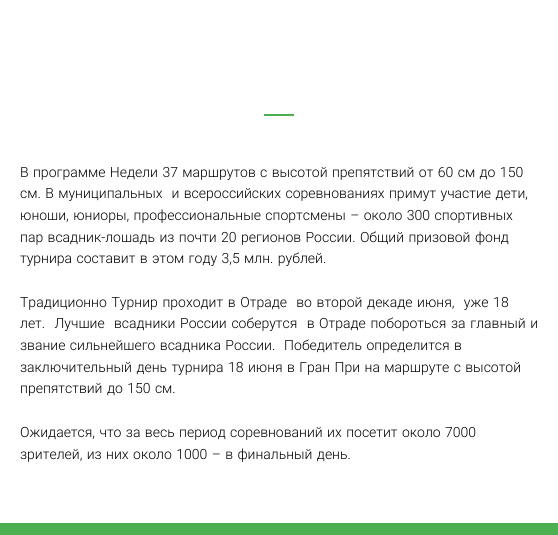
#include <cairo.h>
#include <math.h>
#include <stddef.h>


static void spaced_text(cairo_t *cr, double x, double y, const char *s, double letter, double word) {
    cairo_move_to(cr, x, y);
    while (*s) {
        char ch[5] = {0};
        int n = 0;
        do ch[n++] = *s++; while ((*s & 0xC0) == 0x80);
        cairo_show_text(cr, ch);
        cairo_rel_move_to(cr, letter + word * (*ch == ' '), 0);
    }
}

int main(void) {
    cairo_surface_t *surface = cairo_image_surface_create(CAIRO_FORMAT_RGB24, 558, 535);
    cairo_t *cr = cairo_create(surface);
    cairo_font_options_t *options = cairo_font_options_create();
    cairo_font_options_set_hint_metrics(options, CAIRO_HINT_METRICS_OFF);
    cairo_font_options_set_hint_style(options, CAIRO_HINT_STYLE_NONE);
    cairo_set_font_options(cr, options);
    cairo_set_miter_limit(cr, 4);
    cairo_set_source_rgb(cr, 1, 1, 1);
    cairo_paint(cr);
    cairo_set_source_rgb(cr, 0.298, 0.686, 0.314);
    cairo_rectangle(cr, 264, 114, 30, 2);
    cairo_fill(cr);
    cairo_select_font_face(cr, "Roboto Light", CAIRO_FONT_SLANT_NORMAL, CAIRO_FONT_WEIGHT_NORMAL);
    cairo_set_font_size(cr, 14);
    cairo_set_source_rgb(cr, 0, 0, 0);
    spaced_text(cr, 20, 177, "В программе Недели 37 маршрутов с высотой препятствий от 60 см до 150", 0, 1);
    spaced_text(cr, 20, 198, "см. В муниципальных  и всероссийских соревнованиях примут участие дети,", 0, 1);
    spaced_text(cr, 20, 220, "юноши, юниоры, профессиональные спортсмены – около 300 спортивных", 0, 1);
    spaced_text(cr, 20, 242, "пар всадник-лошадь из почти 20 регионов России. Общий призовой фонд", 0, 1);
    spaced_text(cr, 20, 263, "турнира составит в этом году 3,5 млн. рублей.", 0, 1);
    spaced_text(cr, 20, 307, "Традиционно Турнир проходит в Отраде  во второй декаде июня,  уже 18", 0, 1.25);
    spaced_text(cr, 20, 328, "лет.  Лучшие  всадники России соберутся  в Отраде побороться за главный и", 0, 1.25);
    spaced_text(cr, 20, 350, "звание сильнейшего всадника России.  Победитель определится в", 0, 1);
    spaced_text(cr, 20, 372, "заключительный день турнира 18 июня в Гран При на маршруте с высотой", 0, 1);
    spaced_text(cr, 20, 393, "препятствий до 150 см.", 0, 1);
    spaced_text(cr, 20, 437, "Ожидается, что за весь период соревнований их посетит около 7000", 0, 1);
    spaced_text(cr, 20, 459, "зрителей, из них около 1000 – в финальный день.", 0, 1);
    cairo_set_source_rgb(cr, 0.298, 0.686, 0.314);
    cairo_rectangle(cr, 0, 523, 558, 12);
    cairo_fill(cr);
    cairo_surface_write_to_png(surface, "page.png");
    cairo_font_options_destroy(options);
    cairo_destroy(cr);
    cairo_surface_destroy(surface);
    return 0;
}
